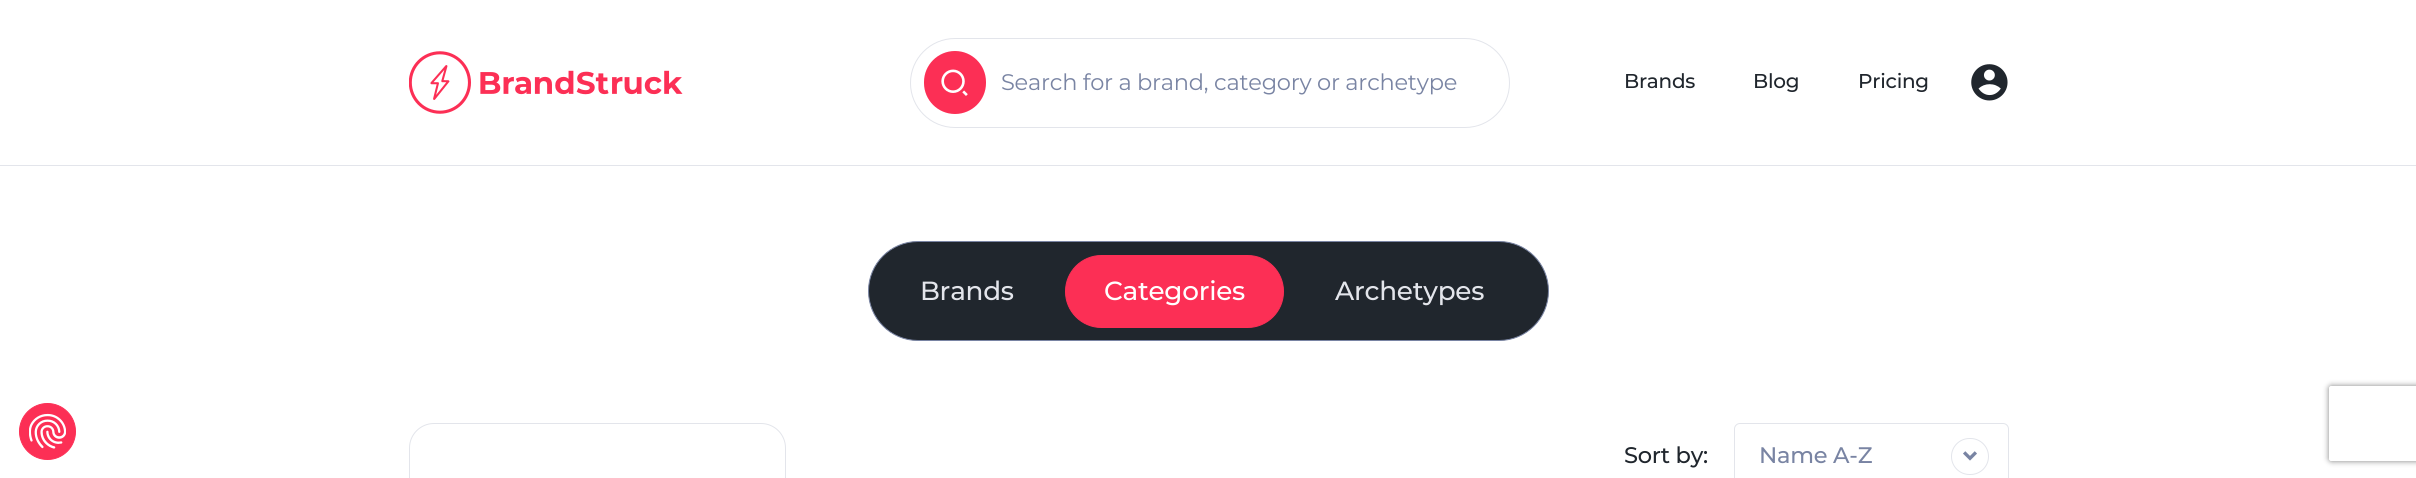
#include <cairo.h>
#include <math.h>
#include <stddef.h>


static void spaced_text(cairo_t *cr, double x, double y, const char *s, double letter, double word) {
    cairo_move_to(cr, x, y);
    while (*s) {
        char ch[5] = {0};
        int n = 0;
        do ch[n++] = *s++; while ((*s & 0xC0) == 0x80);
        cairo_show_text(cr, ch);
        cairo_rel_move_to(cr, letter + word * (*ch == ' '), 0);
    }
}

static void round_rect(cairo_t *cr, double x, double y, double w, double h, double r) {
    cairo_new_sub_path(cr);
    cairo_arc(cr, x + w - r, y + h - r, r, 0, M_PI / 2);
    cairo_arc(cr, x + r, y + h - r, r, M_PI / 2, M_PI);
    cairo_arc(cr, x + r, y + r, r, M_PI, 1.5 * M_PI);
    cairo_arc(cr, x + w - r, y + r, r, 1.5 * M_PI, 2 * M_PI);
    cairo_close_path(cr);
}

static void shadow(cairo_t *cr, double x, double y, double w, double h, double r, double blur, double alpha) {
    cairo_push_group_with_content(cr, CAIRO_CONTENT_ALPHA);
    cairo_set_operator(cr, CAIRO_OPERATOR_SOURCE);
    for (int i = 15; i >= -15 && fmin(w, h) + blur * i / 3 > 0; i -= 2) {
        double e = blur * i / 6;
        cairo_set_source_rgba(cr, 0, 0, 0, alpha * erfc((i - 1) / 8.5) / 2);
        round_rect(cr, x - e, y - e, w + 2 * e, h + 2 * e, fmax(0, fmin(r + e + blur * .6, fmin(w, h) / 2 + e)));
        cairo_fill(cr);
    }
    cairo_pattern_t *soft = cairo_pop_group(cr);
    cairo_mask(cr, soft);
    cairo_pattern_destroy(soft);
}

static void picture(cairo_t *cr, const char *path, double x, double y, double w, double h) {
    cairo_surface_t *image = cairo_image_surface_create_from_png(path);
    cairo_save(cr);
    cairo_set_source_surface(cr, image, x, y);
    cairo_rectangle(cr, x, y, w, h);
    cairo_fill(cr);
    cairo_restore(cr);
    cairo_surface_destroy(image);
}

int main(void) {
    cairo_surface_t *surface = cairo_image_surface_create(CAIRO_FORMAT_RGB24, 2416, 478);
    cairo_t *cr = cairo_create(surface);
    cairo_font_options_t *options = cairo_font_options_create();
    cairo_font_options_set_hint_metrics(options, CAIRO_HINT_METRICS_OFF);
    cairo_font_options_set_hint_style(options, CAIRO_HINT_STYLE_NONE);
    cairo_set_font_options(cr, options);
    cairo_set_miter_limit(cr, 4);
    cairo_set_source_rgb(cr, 1, 1, 1);
    cairo_paint(cr);
    cairo_set_source_rgb(cr, 0.89, 0.898, 0.918);
    cairo_rectangle(cr, 0, 165, 2416, 1);
    cairo_fill(cr);
    picture(cr, "img1.png", 409, 51, 274, 63);
    round_rect(cr, 910.5, 38.5, 599, 89, 44.5);
    cairo_set_line_width(cr, 1);
    cairo_stroke(cr);
    cairo_set_source_rgb(cr, 0.988, 0.184, 0.333);
    round_rect(cr, 924, 51, 62, 63, 31);
    cairo_fill(cr);
    picture(cr, "img2.png", 941, 69, 27, 27);
    cairo_select_font_face(cr, "Montserrat", CAIRO_FONT_SLANT_NORMAL, CAIRO_FONT_WEIGHT_NORMAL);
    cairo_set_font_size(cr, 22.5);
    cairo_set_source_rgb(cr, 0.475, 0.518, 0.639);
    spaced_text(cr, 1001, 90, "Search for a brand, category or archetype", -0.25, 0);
    cairo_select_font_face(cr, "Montserrat Medium", CAIRO_FONT_SLANT_NORMAL, CAIRO_FONT_WEIGHT_NORMAL);
    cairo_set_font_size(cr, 20);
    cairo_set_source_rgb(cr, 0.125, 0.149, 0.176);
    spaced_text(cr, 1624, 88, "Brands", -0.25, 0);
    spaced_text(cr, 1753, 88, "Blog", -0.25, 0);
    spaced_text(cr, 1858, 88, "Pricing", -0.25, 0);
    picture(cr, "img3.png", 1971, 64, 37, 37);
    cairo_set_source_rgb(cr, 0.988, 0.184, 0.333);
    cairo_arc(cr, 47.5, 431.5, 28, 0, 2 * M_PI);
    cairo_fill_preserve(cr);
    cairo_stroke(cr);
    picture(cr, "img4.png", 29, 413, 37, 36);
    cairo_set_source_rgb(cr, 0.125, 0.149, 0.176);
    round_rect(cr, 868.5, 241.5, 680, 99, 49.5);
    cairo_fill_preserve(cr);
    cairo_set_source_rgb(cr, 0.475, 0.518, 0.639);
    cairo_stroke(cr);
    cairo_set_font_size(cr, 26.25);
    cairo_set_source_rgb(cr, 0.89, 0.898, 0.918);
    spaced_text(cr, 920, 300, "Brands", -0.25, 0);
    cairo_set_source_rgb(cr, 0.988, 0.184, 0.333);
    round_rect(cr, 1065.5, 255.5, 218, 72, 36);
    cairo_fill_preserve(cr);
    cairo_stroke(cr);
    cairo_set_source_rgb(cr, 1, 1, 1);
    spaced_text(cr, 1104, 300, "Categories", -0.25, 0);
    cairo_set_source_rgb(cr, 0.89, 0.898, 0.918);
    spaced_text(cr, 1335, 300, "Archetypes", -0.25, 0);
    round_rect(cr, 409.5, 423.5, 376, 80, 24.5);
    cairo_stroke(cr);
    cairo_set_font_size(cr, 22.5);
    cairo_set_source_rgb(cr, 0.125, 0.149, 0.176);
    spaced_text(cr, 1624, 463, "Sort by:", -0.25, 0);
    round_rect(cr, 1734.5, 423.5, 274, 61, 5.5);
    cairo_set_source_rgb(cr, 0.89, 0.898, 0.918);
    cairo_stroke(cr);
    cairo_set_source_rgb(cr, 0.475, 0.518, 0.639);
    spaced_text(cr, 1759, 463, "Name A-Z", -0.25, 0);
    round_rect(cr, 1951.5, 438.5, 37, 36, 18);
    cairo_set_source_rgb(cr, 0.89, 0.898, 0.918);
    cairo_stroke(cr);
    picture(cr, "img5.png", 1963, 451, 14, 10);
    cairo_save(cr);
    cairo_set_fill_rule(cr, CAIRO_FILL_RULE_EVEN_ODD);
    cairo_new_path(cr);
    cairo_move_to(cr, 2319, 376);
    cairo_line_to(cr, 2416, 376);
    cairo_line_to(cr, 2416, 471);
    cairo_line_to(cr, 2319, 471);
    cairo_close_path(cr);
    cairo_move_to(cr, 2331.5, 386);
    cairo_line_to(cr, 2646.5, 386);
    cairo_curve_to(cr, 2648, 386, 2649, 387, 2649, 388.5);
    cairo_line_to(cr, 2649, 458.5);
    cairo_curve_to(cr, 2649, 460, 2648, 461, 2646.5, 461);
    cairo_line_to(cr, 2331.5, 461);
    cairo_curve_to(cr, 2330, 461, 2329, 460, 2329, 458.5);
    cairo_line_to(cr, 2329, 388.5);
    cairo_curve_to(cr, 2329, 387, 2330, 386, 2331.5, 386);
    cairo_close_path(cr);
    cairo_clip(cr);
    cairo_set_source_rgb(cr, 0.502, 0.502, 0.502);
    shadow(cr, 2329, 386, 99, 75, 2.5, 3, 1);
    cairo_restore(cr);
    cairo_surface_write_to_png(surface, "page.png");
    cairo_font_options_destroy(options);
    cairo_destroy(cr);
    cairo_surface_destroy(surface);
    return 0;
}
